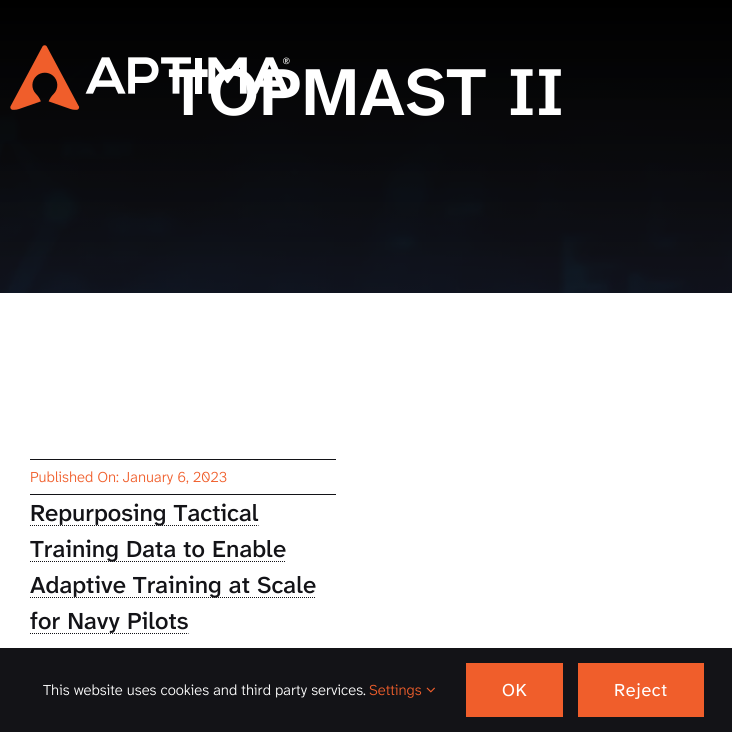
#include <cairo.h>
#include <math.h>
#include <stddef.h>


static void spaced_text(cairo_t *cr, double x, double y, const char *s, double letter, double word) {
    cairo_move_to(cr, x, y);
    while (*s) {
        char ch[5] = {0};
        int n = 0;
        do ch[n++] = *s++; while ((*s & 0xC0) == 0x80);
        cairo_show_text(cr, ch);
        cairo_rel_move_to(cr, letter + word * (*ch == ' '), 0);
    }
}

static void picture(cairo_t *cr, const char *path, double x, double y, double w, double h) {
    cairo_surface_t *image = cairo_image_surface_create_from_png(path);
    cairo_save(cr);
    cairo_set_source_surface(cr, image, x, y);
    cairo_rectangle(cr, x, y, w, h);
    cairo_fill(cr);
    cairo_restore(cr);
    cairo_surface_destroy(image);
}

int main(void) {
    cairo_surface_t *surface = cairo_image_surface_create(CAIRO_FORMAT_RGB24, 732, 732);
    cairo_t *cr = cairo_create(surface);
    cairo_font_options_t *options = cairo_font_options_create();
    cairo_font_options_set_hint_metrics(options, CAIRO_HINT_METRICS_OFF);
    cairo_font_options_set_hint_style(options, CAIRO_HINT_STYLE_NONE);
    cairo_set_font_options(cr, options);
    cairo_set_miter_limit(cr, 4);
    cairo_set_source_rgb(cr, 1, 1, 1);
    cairo_paint(cr);
    picture(cr, "img2.png", 0, 0, 732, 293);
    cairo_select_font_face(cr, "Atkinson Hyperlegible Next SemiBold", CAIRO_FONT_SLANT_NORMAL, CAIRO_FONT_WEIGHT_NORMAL);
    cairo_set_font_size(cr, 68.5);
    cairo_set_source_rgb(cr, 1, 1, 1);
    cairo_move_to(cr, 168, 115);
    cairo_show_text(cr, "TOPMAST II");
    picture(cr, "img1.png", 10, 45, 280, 65);
    cairo_set_source_rgb(cr, 0.078, 0.078, 0.09);
    cairo_rectangle(cr, 30, 459, 306, 1);
    cairo_fill(cr);
    cairo_rectangle(cr, 30, 494, 306, 1);
    cairo_fill(cr);
    cairo_select_font_face(cr, "Atkinson Hyperlegible Next Light", CAIRO_FONT_SLANT_NORMAL, CAIRO_FONT_WEIGHT_NORMAL);
    cairo_set_font_size(cr, 15);
    cairo_set_source_rgb(cr, 0.941, 0.369, 0.169);
    cairo_move_to(cr, 30, 482);
    cairo_show_text(cr, "Published On: January 6, 2023");
    cairo_new_path(cr);
    cairo_move_to(cr, 30, 525.5);
    cairo_line_to(cr, 258.5, 525.5);
    cairo_set_source_rgb(cr, 0.078, 0.078, 0.09);
    cairo_set_line_width(cr, 1);
    cairo_set_dash(cr, (double[]){1, 1}, 2, 0);
    cairo_stroke(cr);
    cairo_select_font_face(cr, "Atkinson Hyperlegible Next Medium", CAIRO_FONT_SLANT_NORMAL, CAIRO_FONT_WEIGHT_NORMAL);
    cairo_set_font_size(cr, 24);
    cairo_move_to(cr, 30, 521);
    cairo_show_text(cr, "Repurposing Tactical");
    cairo_new_path(cr);
    cairo_move_to(cr, 30, 561.5);
    cairo_line_to(cr, 286, 561.5);
    cairo_stroke(cr);
    cairo_move_to(cr, 30, 557);
    cairo_show_text(cr, "Training Data to Enable");
    cairo_new_path(cr);
    cairo_move_to(cr, 30, 597.5);
    cairo_line_to(cr, 316, 597.5);
    cairo_stroke(cr);
    cairo_move_to(cr, 30, 593);
    cairo_show_text(cr, "Adaptive Training at Scale");
    cairo_move_to(cr, 30, 629);
    cairo_show_text(cr, "for Navy Pilots");
    cairo_new_path(cr);
    cairo_move_to(cr, 30, 633.5);
    cairo_line_to(cr, 188.5, 633.5);
    cairo_stroke(cr);
    cairo_rectangle(cr, 0, 648, 732, 84);
    cairo_fill(cr);
    cairo_select_font_face(cr, "Atkinson Hyperlegible Next Light", CAIRO_FONT_SLANT_NORMAL, CAIRO_FONT_WEIGHT_NORMAL);
    cairo_set_font_size(cr, 15);
    cairo_set_source_rgb(cr, 1, 1, 1);
    cairo_move_to(cr, 43, 695);
    cairo_show_text(cr, "This website uses cookies and third party services.");
    cairo_set_source_rgb(cr, 0.941, 0.369, 0.169);
    cairo_move_to(cr, 369, 695);
    cairo_show_text(cr, "Settings");
    picture(cr, "img3.png", 426, 687, 9, 6);
    cairo_rectangle(cr, 466, 663, 97, 54);
    cairo_fill(cr);
    cairo_select_font_face(cr, "Atkinson Hyperlegible Next", CAIRO_FONT_SLANT_NORMAL, CAIRO_FONT_WEIGHT_NORMAL);
    cairo_set_font_size(cr, 18);
    cairo_set_source_rgb(cr, 1, 1, 1);
    spaced_text(cr, 502, 696, "OK", 0.75, 0);
    cairo_set_source_rgb(cr, 0.941, 0.369, 0.169);
    cairo_rectangle(cr, 578, 663, 126, 54);
    cairo_fill(cr);
    cairo_set_source_rgb(cr, 1, 1, 1);
    spaced_text(cr, 614, 696, "Reject", 0.75, 0);
    cairo_surface_write_to_png(surface, "page.png");
    cairo_font_options_destroy(options);
    cairo_destroy(cr);
    cairo_surface_destroy(surface);
    return 0;
}
